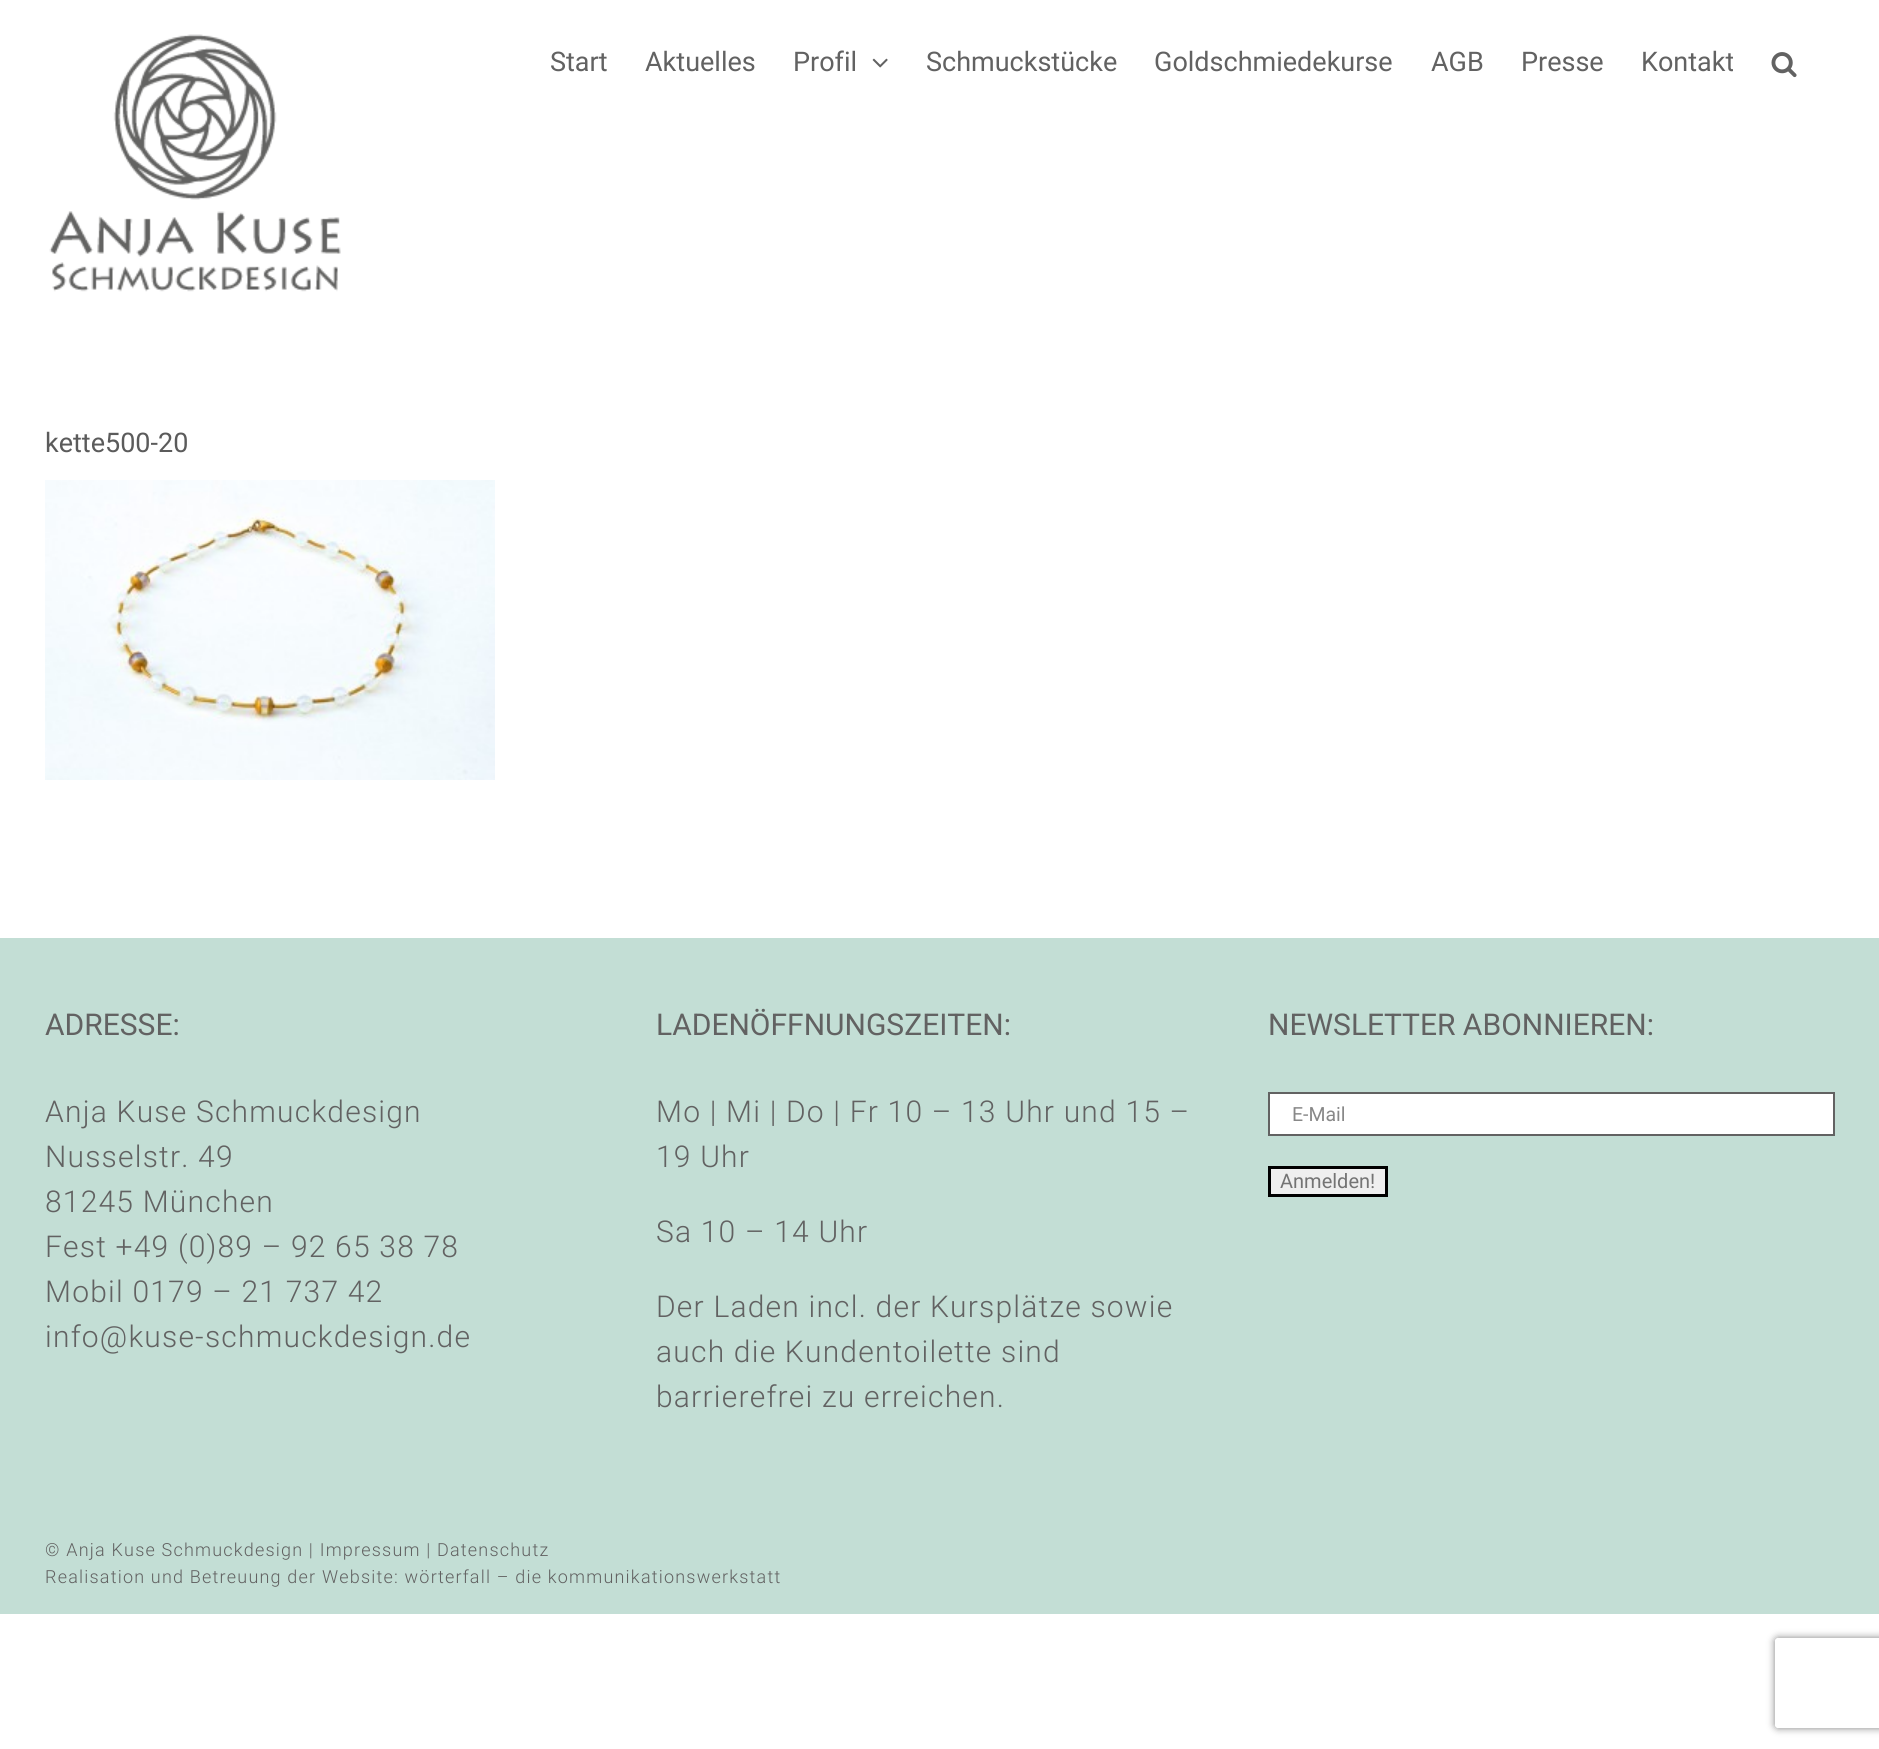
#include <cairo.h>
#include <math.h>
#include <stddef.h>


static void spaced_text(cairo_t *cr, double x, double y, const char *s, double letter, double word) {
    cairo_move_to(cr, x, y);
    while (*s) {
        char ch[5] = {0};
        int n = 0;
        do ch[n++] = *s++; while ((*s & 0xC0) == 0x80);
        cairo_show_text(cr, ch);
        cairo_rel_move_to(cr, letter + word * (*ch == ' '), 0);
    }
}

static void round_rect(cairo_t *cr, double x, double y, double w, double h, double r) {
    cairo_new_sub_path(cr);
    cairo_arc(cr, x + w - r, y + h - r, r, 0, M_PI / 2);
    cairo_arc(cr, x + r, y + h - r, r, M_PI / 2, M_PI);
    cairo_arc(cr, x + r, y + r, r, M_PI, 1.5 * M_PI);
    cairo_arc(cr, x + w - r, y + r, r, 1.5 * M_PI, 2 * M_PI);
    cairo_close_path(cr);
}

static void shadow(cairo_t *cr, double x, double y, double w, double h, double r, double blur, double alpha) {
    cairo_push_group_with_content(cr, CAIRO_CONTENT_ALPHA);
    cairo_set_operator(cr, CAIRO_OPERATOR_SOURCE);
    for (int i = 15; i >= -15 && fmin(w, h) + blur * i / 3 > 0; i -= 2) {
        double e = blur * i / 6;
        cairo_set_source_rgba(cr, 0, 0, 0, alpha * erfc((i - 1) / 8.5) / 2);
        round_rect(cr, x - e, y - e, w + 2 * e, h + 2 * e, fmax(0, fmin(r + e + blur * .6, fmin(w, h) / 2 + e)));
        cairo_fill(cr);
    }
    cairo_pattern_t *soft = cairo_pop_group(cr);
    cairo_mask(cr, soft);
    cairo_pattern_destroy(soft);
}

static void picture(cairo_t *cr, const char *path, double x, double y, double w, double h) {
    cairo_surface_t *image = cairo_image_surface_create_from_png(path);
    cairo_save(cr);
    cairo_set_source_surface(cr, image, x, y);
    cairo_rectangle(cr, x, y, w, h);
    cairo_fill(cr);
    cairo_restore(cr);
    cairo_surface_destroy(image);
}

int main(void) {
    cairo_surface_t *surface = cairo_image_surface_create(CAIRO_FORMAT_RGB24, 1879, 1749);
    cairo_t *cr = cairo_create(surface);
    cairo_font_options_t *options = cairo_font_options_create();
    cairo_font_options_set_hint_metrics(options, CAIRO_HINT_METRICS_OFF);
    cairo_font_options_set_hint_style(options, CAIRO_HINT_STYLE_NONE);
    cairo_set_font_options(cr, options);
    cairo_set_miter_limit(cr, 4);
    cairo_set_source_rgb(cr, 1, 1, 1);
    cairo_paint(cr);
    picture(cr, "img1.png", 49, 34, 292, 258);
    cairo_select_font_face(cr, "Roboto", CAIRO_FONT_SLANT_NORMAL, CAIRO_FONT_WEIGHT_NORMAL);
    cairo_set_font_size(cr, 27);
    cairo_set_source_rgb(cr, 0.384, 0.384, 0.384);
    cairo_move_to(cr, 550, 71);
    cairo_show_text(cr, "Start");
    cairo_move_to(cr, 645, 71);
    cairo_show_text(cr, "Aktuelles");
    cairo_move_to(cr, 793, 71);
    cairo_show_text(cr, "Profil");
    picture(cr, "img2.png", 872, 58, 16, 10);
    cairo_move_to(cr, 926, 71);
    cairo_show_text(cr, "Schmuckstücke");
    cairo_move_to(cr, 1154, 71);
    cairo_show_text(cr, "Goldschmiedekurse");
    cairo_move_to(cr, 1431, 71);
    cairo_show_text(cr, "AGB");
    cairo_move_to(cr, 1521, 71);
    cairo_show_text(cr, "Presse");
    cairo_move_to(cr, 1641, 71);
    cairo_show_text(cr, "Kontakt");
    picture(cr, "img3.png", 1771, 52, 26, 26);
    cairo_set_source_rgb(cr, 0.357, 0.357, 0.357);
    cairo_move_to(cr, 45, 452);
    cairo_show_text(cr, "kette500-20");
    picture(cr, "img4.png", 45, 480, 450, 300);
    cairo_set_source_rgb(cr, 0.765, 0.871, 0.835);
    cairo_rectangle(cr, 0, 938, 1879, 676);
    cairo_fill(cr);
    cairo_set_font_size(cr, 30);
    cairo_set_source_rgb(cr, 0.384, 0.384, 0.384);
    cairo_move_to(cr, 45, 1035);
    cairo_show_text(cr, "ADRESSE:");
    cairo_select_font_face(cr, "Roboto Light", CAIRO_FONT_SLANT_NORMAL, CAIRO_FONT_WEIGHT_NORMAL);
    spaced_text(cr, 45, 1122, "Anja Kuse Schmuckdesign", 1.2, 0);
    spaced_text(cr, 45, 1167, "Nusselstr. 49", 1.2, 0);
    spaced_text(cr, 45, 1212, "81245 München", 1.2, 0);
    spaced_text(cr, 45, 1257, "Fest +49 (0)89 – 92 65 38 78", 1.2, 0);
    spaced_text(cr, 45, 1302, "Mobil 0179 – 21 737 42", 1.2, 0);
    spaced_text(cr, 45, 1347, "info@kuse-schmuckdesign.de", 1.2, 0);
    cairo_select_font_face(cr, "Roboto", CAIRO_FONT_SLANT_NORMAL, CAIRO_FONT_WEIGHT_NORMAL);
    cairo_move_to(cr, 656, 1035);
    cairo_show_text(cr, "LADENÖFFNUNGSZEITEN:");
    cairo_select_font_face(cr, "Roboto Light", CAIRO_FONT_SLANT_NORMAL, CAIRO_FONT_WEIGHT_NORMAL);
    spaced_text(cr, 656, 1122, "Mo | Mi | Do | Fr 10 – 13 Uhr und 15 –", 1.2, 0);
    spaced_text(cr, 656, 1167, "19 Uhr", 1.2, 0);
    spaced_text(cr, 656, 1242, "Sa 10 – 14 Uhr", 1.2, 0);
    spaced_text(cr, 656, 1317, "Der Laden incl. der Kursplätze sowie", 1.2, 0);
    spaced_text(cr, 656, 1362, "auch die Kundentoilette sind", 1.2, 0);
    spaced_text(cr, 656, 1407, "barrierefrei zu erreichen.", 1.2, 0);
    cairo_select_font_face(cr, "Roboto", CAIRO_FONT_SLANT_NORMAL, CAIRO_FONT_WEIGHT_NORMAL);
    cairo_move_to(cr, 1268, 1035);
    cairo_show_text(cr, "NEWSLETTER ABONNIEREN:");
    cairo_set_source_rgb(cr, 1, 1, 1);
    cairo_rectangle(cr, 1269, 1093, 565, 42);
    cairo_fill_preserve(cr);
    cairo_set_source_rgb(cr, 0.384, 0.384, 0.384);
    cairo_stroke(cr);
    cairo_set_font_size(cr, 19.5);
    cairo_set_source_rgb(cr, 0.533, 0.533, 0.533);
    cairo_move_to(cr, 1292, 1121);
    cairo_show_text(cr, "E-Mail");
    cairo_set_source_rgb(cr, 0.937, 0.937, 0.937);
    cairo_rectangle(cr, 1269.5, 1167.5, 117, 28);
    cairo_fill_preserve(cr);
    cairo_set_source_rgb(cr, 0, 0, 0);
    cairo_set_line_width(cr, 3);
    cairo_stroke(cr);
    cairo_set_font_size(cr, 20);
    cairo_set_source_rgb(cr, 0.455, 0.455, 0.455);
    cairo_move_to(cr, 1280, 1188);
    cairo_show_text(cr, "Anmelden!");
    cairo_select_font_face(cr, "Roboto Light", CAIRO_FONT_SLANT_NORMAL, CAIRO_FONT_WEIGHT_NORMAL);
    cairo_set_font_size(cr, 18);
    cairo_set_source_rgb(cr, 0.384, 0.384, 0.384);
    spaced_text(cr, 45, 1556, "© Anja Kuse Schmuckdesign | Impressum | Datenschutz", 1.2, 0);
    spaced_text(cr, 45, 1583, "Realisation und Betreuung der Website: wörterfall – die kommunikationswerkstatt", 1.2, 0);
    cairo_save(cr);
    cairo_set_fill_rule(cr, CAIRO_FILL_RULE_EVEN_ODD);
    cairo_new_path(cr);
    cairo_move_to(cr, 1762, 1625);
    cairo_line_to(cr, 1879, 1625);
    cairo_line_to(cr, 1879, 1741);
    cairo_line_to(cr, 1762, 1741);
    cairo_close_path(cr);
    cairo_move_to(cr, 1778, 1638);
    cairo_line_to(cr, 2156, 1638);
    cairo_curve_to(cr, 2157.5, 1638, 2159, 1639.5, 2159, 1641);
    cairo_line_to(cr, 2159, 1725);
    cairo_curve_to(cr, 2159, 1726.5, 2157.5, 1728, 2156, 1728);
    cairo_line_to(cr, 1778, 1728);
    cairo_curve_to(cr, 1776.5, 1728, 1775, 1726.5, 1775, 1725);
    cairo_line_to(cr, 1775, 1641);
    cairo_curve_to(cr, 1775, 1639.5, 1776.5, 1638, 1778, 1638);
    cairo_close_path(cr);
    cairo_clip(cr);
    cairo_set_source_rgb(cr, 0.502, 0.502, 0.502);
    shadow(cr, 1775, 1638, 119, 90, 3, 4, 1);
    cairo_restore(cr);
    cairo_surface_write_to_png(surface, "page.png");
    cairo_font_options_destroy(options);
    cairo_destroy(cr);
    cairo_surface_destroy(surface);
    return 0;
}
